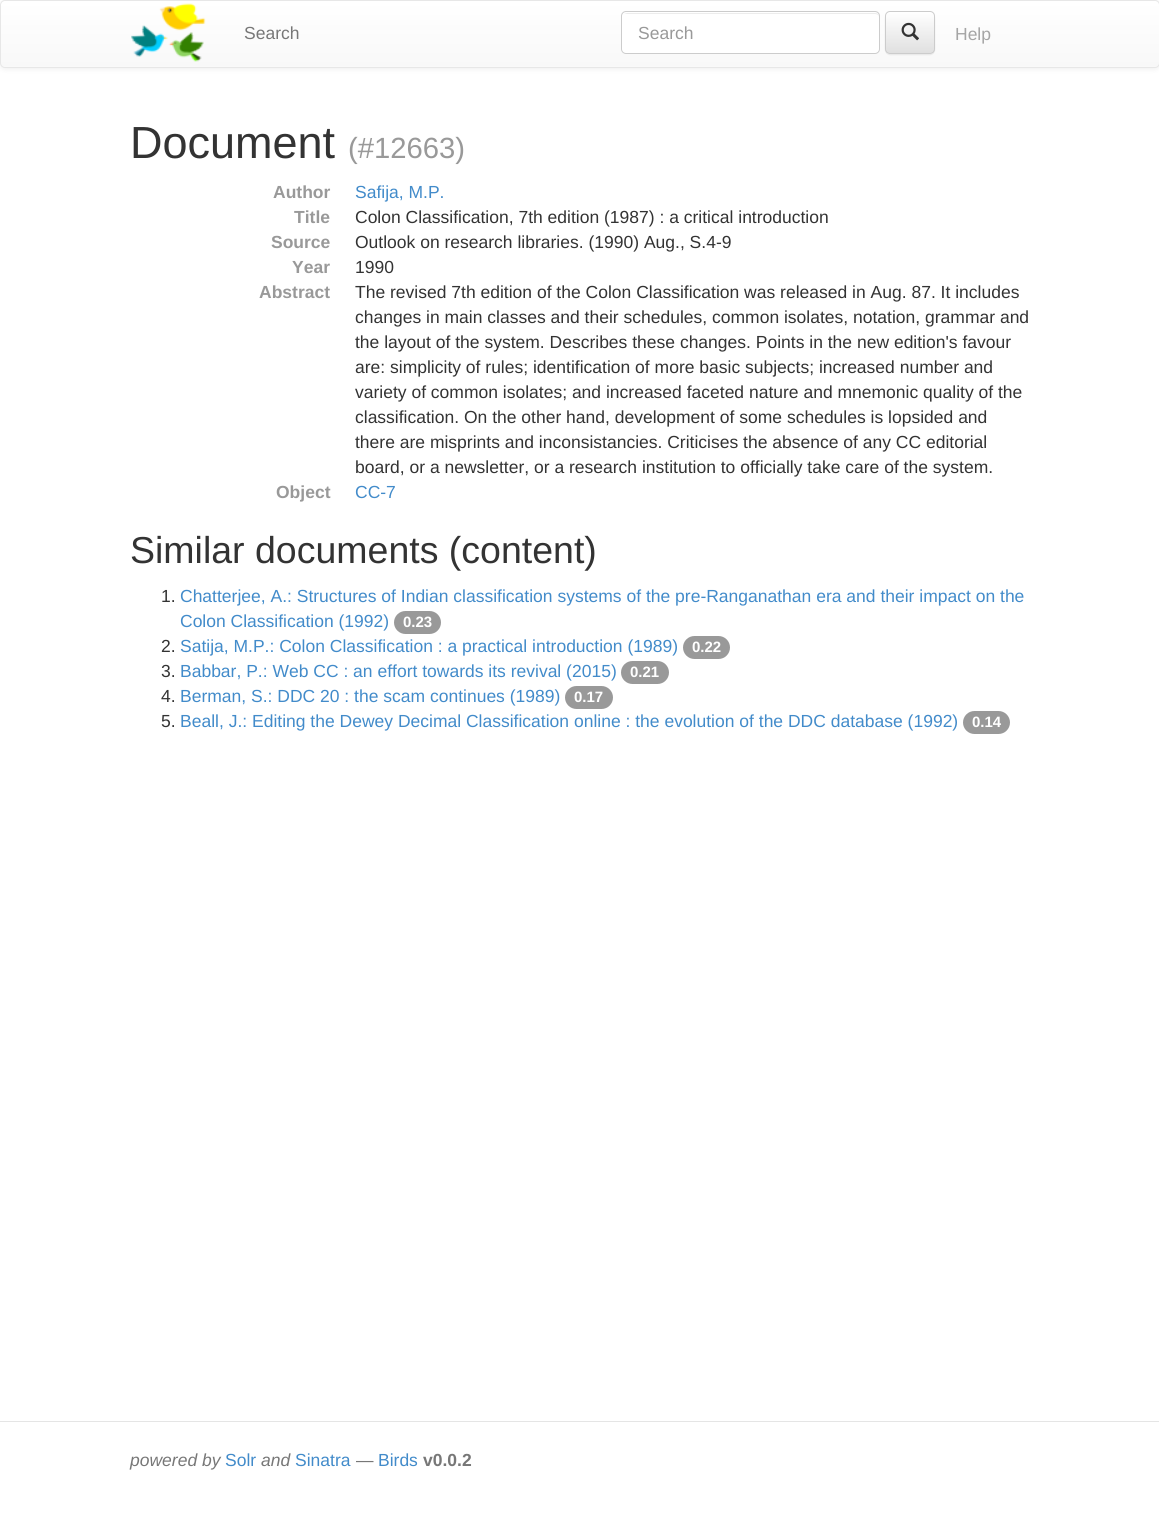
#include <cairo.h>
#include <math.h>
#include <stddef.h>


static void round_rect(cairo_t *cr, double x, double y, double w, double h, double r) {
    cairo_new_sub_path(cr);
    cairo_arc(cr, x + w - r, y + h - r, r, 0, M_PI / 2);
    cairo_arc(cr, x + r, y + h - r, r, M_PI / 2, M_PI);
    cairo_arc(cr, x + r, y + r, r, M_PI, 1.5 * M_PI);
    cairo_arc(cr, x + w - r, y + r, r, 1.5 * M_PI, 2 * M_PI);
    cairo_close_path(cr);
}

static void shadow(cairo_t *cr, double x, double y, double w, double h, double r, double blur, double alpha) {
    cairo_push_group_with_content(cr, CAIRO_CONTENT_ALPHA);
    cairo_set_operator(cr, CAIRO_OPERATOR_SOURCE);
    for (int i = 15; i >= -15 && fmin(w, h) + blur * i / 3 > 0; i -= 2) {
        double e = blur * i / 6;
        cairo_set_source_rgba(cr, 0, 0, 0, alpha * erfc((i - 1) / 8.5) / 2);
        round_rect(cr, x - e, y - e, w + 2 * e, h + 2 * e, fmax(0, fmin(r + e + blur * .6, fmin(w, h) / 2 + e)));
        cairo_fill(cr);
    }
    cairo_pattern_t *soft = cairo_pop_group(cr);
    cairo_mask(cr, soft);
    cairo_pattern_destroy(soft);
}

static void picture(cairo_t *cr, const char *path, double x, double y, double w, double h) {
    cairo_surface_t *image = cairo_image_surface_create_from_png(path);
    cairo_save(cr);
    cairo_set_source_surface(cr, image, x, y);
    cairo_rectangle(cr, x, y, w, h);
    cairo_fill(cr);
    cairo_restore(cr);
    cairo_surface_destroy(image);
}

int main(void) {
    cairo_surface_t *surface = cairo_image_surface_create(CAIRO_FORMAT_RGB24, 1159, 1521);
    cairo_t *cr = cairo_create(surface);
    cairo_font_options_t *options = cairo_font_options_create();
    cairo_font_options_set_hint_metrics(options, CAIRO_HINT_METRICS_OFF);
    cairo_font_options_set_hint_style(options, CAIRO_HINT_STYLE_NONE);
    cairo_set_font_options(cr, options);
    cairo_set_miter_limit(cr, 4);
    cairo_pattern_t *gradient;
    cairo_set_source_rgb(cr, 1, 1, 1);
    cairo_paint(cr);
    cairo_set_source_rgb(cr, 0, 0, 0);
    shadow(cr, 0, 1, 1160, 68, 5, 3, 0.07);
    cairo_set_source_rgb(cr, 0.973, 0.973, 0.973);
    round_rect(cr, 0, 0, 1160, 68, 5);
    cairo_fill(cr);
    cairo_save(cr);
    round_rect(cr, 0, 0, 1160, 68, 5);
    cairo_clip(cr);
    gradient = cairo_pattern_create_linear(580, 1.2, 580, 66);
    cairo_pattern_add_color_stop_rgba(gradient, 0, 1, 1, 1, 1);
    cairo_pattern_add_color_stop_rgba(gradient, 1, 0.973, 0.973, 0.973, 1);
    cairo_set_source(cr, gradient);
    cairo_pattern_destroy(gradient);
    cairo_rectangle(cr, 0, 1, 1159, 65);
    cairo_fill(cr);
    cairo_restore(cr);
    round_rect(cr, 0.5, 0.5, 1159, 67, 4.5);
    cairo_set_source_rgb(cr, 0.906, 0.906, 0.906);
    cairo_set_line_width(cr, 1);
    cairo_stroke(cr);
    picture(cr, "img1.png", 131, 3, 75, 59);
    cairo_select_font_face(cr, "Liberation Sans", CAIRO_FONT_SLANT_NORMAL, CAIRO_FONT_WEIGHT_NORMAL);
    cairo_set_font_size(cr, 17.5);
    cairo_set_source_rgb(cr, 0.467, 0.467, 0.467);
    cairo_move_to(cr, 244, 39);
    cairo_show_text(cr, "Search");
    cairo_set_source_rgb(cr, 1, 1, 1);
    round_rect(cr, 621, 11, 259, 43, 5);
    cairo_fill(cr);
    cairo_set_source_rgb(cr, 0.925, 0.925, 0.925);
    cairo_new_path(cr);
    cairo_move_to(cr, 626, 14);
    cairo_line_to(cr, 875, 14);
    cairo_curve_to(cr, 877, 14, 879, 15, 879, 18);
    cairo_curve_to(cr, 879, 15, 878, 13, 875, 13);
    cairo_line_to(cr, 627, 13);
    cairo_line_to(cr, 624, 14);
    cairo_close_path(cr);
    cairo_fill(cr);
    round_rect(cr, 621.5, 11.5, 258, 42, 4.5);
    cairo_set_source_rgb(cr, 0.8, 0.8, 0.8);
    cairo_stroke(cr);
    cairo_set_source_rgb(cr, 0.6, 0.6, 0.6);
    cairo_move_to(cr, 638, 39);
    cairo_show_text(cr, "Search");
    cairo_set_source_rgb(cr, 0, 0, 0);
    shadow(cr, 885, 13, 50, 42, 5, 0.5, 0.07);
    cairo_set_source_rgb(cr, 1, 1, 1);
    round_rect(cr, 885, 11, 50, 43, 5);
    cairo_fill(cr);
    cairo_save(cr);
    round_rect(cr, 885, 11, 50, 43, 5);
    cairo_clip(cr);
    gradient = cairo_pattern_create_linear(910, 12, 910, 53);
    cairo_pattern_add_color_stop_rgba(gradient, 0, 1, 1, 1, 1);
    cairo_pattern_add_color_stop_rgba(gradient, 1, 0.878, 0.878, 0.878, 1);
    cairo_set_source(cr, gradient);
    cairo_pattern_destroy(gradient);
    cairo_rectangle(cr, 885, 13, 50, 40);
    cairo_fill(cr);
    cairo_restore(cr);
    round_rect(cr, 885.5, 11.5, 49, 42, 4.5);
    cairo_set_source_rgb(cr, 0.8, 0.8, 0.8);
    cairo_stroke(cr);
    picture(cr, "img2.png", 901, 22, 18, 19);
    cairo_set_source_rgb(cr, 0.647, 0.647, 0.647);
    cairo_move_to(cr, 955, 40);
    cairo_show_text(cr, "Help");
    cairo_set_font_size(cr, 45);
    cairo_set_source_rgb(cr, 0.2, 0.2, 0.2);
    cairo_move_to(cr, 130, 158);
    cairo_show_text(cr, "Document");
    cairo_set_font_size(cr, 29.25);
    cairo_set_source_rgb(cr, 0.6, 0.6, 0.6);
    cairo_move_to(cr, 348, 158);
    cairo_show_text(cr, "(#12663)");
    cairo_select_font_face(cr, "Liberation Sans", CAIRO_FONT_SLANT_NORMAL, CAIRO_FONT_WEIGHT_BOLD);
    cairo_set_font_size(cr, 17.5);
    cairo_move_to(cr, 273, 198);
    cairo_show_text(cr, "Author");
    cairo_select_font_face(cr, "Liberation Sans", CAIRO_FONT_SLANT_NORMAL, CAIRO_FONT_WEIGHT_NORMAL);
    cairo_set_source_rgb(cr, 0.259, 0.545, 0.792);
    cairo_move_to(cr, 355, 198);
    cairo_show_text(cr, "Safija, M.P.");
    cairo_select_font_face(cr, "Liberation Sans", CAIRO_FONT_SLANT_NORMAL, CAIRO_FONT_WEIGHT_BOLD);
    cairo_set_source_rgb(cr, 0.6, 0.6, 0.6);
    cairo_move_to(cr, 294, 223);
    cairo_show_text(cr, "Title");
    cairo_select_font_face(cr, "Liberation Sans", CAIRO_FONT_SLANT_NORMAL, CAIRO_FONT_WEIGHT_NORMAL);
    cairo_set_source_rgb(cr, 0.2, 0.2, 0.2);
    cairo_move_to(cr, 355, 223);
    cairo_show_text(cr, "Colon Classification, 7th edition (1987) : a critical introduction");
    cairo_select_font_face(cr, "Liberation Sans", CAIRO_FONT_SLANT_NORMAL, CAIRO_FONT_WEIGHT_BOLD);
    cairo_set_source_rgb(cr, 0.6, 0.6, 0.6);
    cairo_move_to(cr, 271, 248);
    cairo_show_text(cr, "Source");
    cairo_select_font_face(cr, "Liberation Sans", CAIRO_FONT_SLANT_NORMAL, CAIRO_FONT_WEIGHT_NORMAL);
    cairo_set_source_rgb(cr, 0.2, 0.2, 0.2);
    cairo_move_to(cr, 355, 248);
    cairo_show_text(cr, "Outlook on research libraries. (1990) Aug., S.4-9");
    cairo_select_font_face(cr, "Liberation Sans", CAIRO_FONT_SLANT_NORMAL, CAIRO_FONT_WEIGHT_BOLD);
    cairo_set_source_rgb(cr, 0.6, 0.6, 0.6);
    cairo_move_to(cr, 292, 273);
    cairo_show_text(cr, "Year");
    cairo_select_font_face(cr, "Liberation Sans", CAIRO_FONT_SLANT_NORMAL, CAIRO_FONT_WEIGHT_NORMAL);
    cairo_set_source_rgb(cr, 0.2, 0.2, 0.2);
    cairo_move_to(cr, 355, 273);
    cairo_show_text(cr, "1990");
    cairo_select_font_face(cr, "Liberation Sans", CAIRO_FONT_SLANT_NORMAL, CAIRO_FONT_WEIGHT_BOLD);
    cairo_set_source_rgb(cr, 0.6, 0.6, 0.6);
    cairo_move_to(cr, 259, 298);
    cairo_show_text(cr, "Abstract");
    cairo_select_font_face(cr, "Liberation Sans", CAIRO_FONT_SLANT_NORMAL, CAIRO_FONT_WEIGHT_NORMAL);
    cairo_set_source_rgb(cr, 0.2, 0.2, 0.2);
    cairo_move_to(cr, 355, 298);
    cairo_show_text(cr, "The revised 7th edition of the Colon Classification was released in Aug. 87. It includes");
    cairo_move_to(cr, 355, 323);
    cairo_show_text(cr, "changes in main classes and their schedules, common isolates, notation, grammar and");
    cairo_move_to(cr, 355, 348);
    cairo_show_text(cr, "the layout of the system. Describes these changes. Points in the new edition's favour");
    cairo_move_to(cr, 355, 373);
    cairo_show_text(cr, "are: simplicity of rules; identification of more basic subjects; increased number and");
    cairo_move_to(cr, 355, 398);
    cairo_show_text(cr, "variety of common isolates; and increased faceted nature and mnemonic quality of the");
    cairo_move_to(cr, 355, 423);
    cairo_show_text(cr, "classification. On the other hand, development of some schedules is lopsided and");
    cairo_move_to(cr, 355, 448);
    cairo_show_text(cr, "there are misprints and inconsistancies. Criticises the absence of any CC editorial");
    cairo_move_to(cr, 355, 473);
    cairo_show_text(cr, "board, or a newsletter, or a research institution to officially take care of the system.");
    cairo_select_font_face(cr, "Liberation Sans", CAIRO_FONT_SLANT_NORMAL, CAIRO_FONT_WEIGHT_BOLD);
    cairo_set_source_rgb(cr, 0.6, 0.6, 0.6);
    cairo_move_to(cr, 276, 498);
    cairo_show_text(cr, "Object");
    cairo_select_font_face(cr, "Liberation Sans", CAIRO_FONT_SLANT_NORMAL, CAIRO_FONT_WEIGHT_NORMAL);
    cairo_set_source_rgb(cr, 0.259, 0.545, 0.792);
    cairo_move_to(cr, 355, 498);
    cairo_show_text(cr, "CC-7");
    cairo_set_font_size(cr, 37.5);
    cairo_set_source_rgb(cr, 0.2, 0.2, 0.2);
    cairo_move_to(cr, 130, 563);
    cairo_show_text(cr, "Similar documents (content)");
    cairo_set_font_size(cr, 17.5);
    cairo_move_to(cr, 161, 602);
    cairo_show_text(cr, "1.");
    cairo_set_source_rgb(cr, 0.259, 0.545, 0.792);
    cairo_move_to(cr, 180, 602);
    cairo_show_text(cr, "Chatterjee, A.: Structures of Indian classification systems of the pre-Ranganathan era and their impact on the");
    cairo_move_to(cr, 180, 627);
    cairo_show_text(cr, "Colon Classification (1992)");
    cairo_set_source_rgb(cr, 0.6, 0.6, 0.6);
    round_rect(cr, 394, 611, 47, 23, 11.5);
    cairo_fill(cr);
    cairo_select_font_face(cr, "Liberation Sans", CAIRO_FONT_SLANT_NORMAL, CAIRO_FONT_WEIGHT_BOLD);
    cairo_set_font_size(cr, 15);
    cairo_set_source_rgb(cr, 1, 1, 1);
    cairo_move_to(cr, 403, 627);
    cairo_show_text(cr, "0.23");
    cairo_select_font_face(cr, "Liberation Sans", CAIRO_FONT_SLANT_NORMAL, CAIRO_FONT_WEIGHT_NORMAL);
    cairo_set_font_size(cr, 17.5);
    cairo_set_source_rgb(cr, 0.2, 0.2, 0.2);
    cairo_move_to(cr, 161, 652);
    cairo_show_text(cr, "2.");
    cairo_set_source_rgb(cr, 0.259, 0.545, 0.792);
    cairo_move_to(cr, 180, 652);
    cairo_show_text(cr, "Satija, M.P.: Colon Classification : a practical introduction (1989)");
    cairo_set_source_rgb(cr, 0.6, 0.6, 0.6);
    round_rect(cr, 683, 636, 47, 23, 11.5);
    cairo_fill(cr);
    cairo_select_font_face(cr, "Liberation Sans", CAIRO_FONT_SLANT_NORMAL, CAIRO_FONT_WEIGHT_BOLD);
    cairo_set_font_size(cr, 15);
    cairo_set_source_rgb(cr, 1, 1, 1);
    cairo_move_to(cr, 692, 652);
    cairo_show_text(cr, "0.22");
    cairo_select_font_face(cr, "Liberation Sans", CAIRO_FONT_SLANT_NORMAL, CAIRO_FONT_WEIGHT_NORMAL);
    cairo_set_font_size(cr, 17.5);
    cairo_set_source_rgb(cr, 0.2, 0.2, 0.2);
    cairo_move_to(cr, 161, 677);
    cairo_show_text(cr, "3.");
    cairo_set_source_rgb(cr, 0.259, 0.545, 0.792);
    cairo_move_to(cr, 180, 677);
    cairo_show_text(cr, "Babbar, P.: Web CC : an effort towards its revival (2015)");
    cairo_set_source_rgb(cr, 0.6, 0.6, 0.6);
    round_rect(cr, 621, 661, 48, 23, 11.5);
    cairo_fill(cr);
    cairo_select_font_face(cr, "Liberation Sans", CAIRO_FONT_SLANT_NORMAL, CAIRO_FONT_WEIGHT_BOLD);
    cairo_set_font_size(cr, 15);
    cairo_set_source_rgb(cr, 1, 1, 1);
    cairo_move_to(cr, 630, 677);
    cairo_show_text(cr, "0.21");
    cairo_select_font_face(cr, "Liberation Sans", CAIRO_FONT_SLANT_NORMAL, CAIRO_FONT_WEIGHT_NORMAL);
    cairo_set_font_size(cr, 17.5);
    cairo_set_source_rgb(cr, 0.2, 0.2, 0.2);
    cairo_move_to(cr, 161, 702);
    cairo_show_text(cr, "4.");
    cairo_set_source_rgb(cr, 0.259, 0.545, 0.792);
    cairo_move_to(cr, 180, 702);
    cairo_show_text(cr, "Berman, S.: DDC 20 : the scam continues (1989)");
    cairo_set_source_rgb(cr, 0.6, 0.6, 0.6);
    round_rect(cr, 565, 686, 48, 23, 11.5);
    cairo_fill(cr);
    cairo_select_font_face(cr, "Liberation Sans", CAIRO_FONT_SLANT_NORMAL, CAIRO_FONT_WEIGHT_BOLD);
    cairo_set_font_size(cr, 15);
    cairo_set_source_rgb(cr, 1, 1, 1);
    cairo_move_to(cr, 574, 702);
    cairo_show_text(cr, "0.17");
    cairo_select_font_face(cr, "Liberation Sans", CAIRO_FONT_SLANT_NORMAL, CAIRO_FONT_WEIGHT_NORMAL);
    cairo_set_font_size(cr, 17.5);
    cairo_set_source_rgb(cr, 0.2, 0.2, 0.2);
    cairo_move_to(cr, 161, 727);
    cairo_show_text(cr, "5.");
    cairo_set_source_rgb(cr, 0.259, 0.545, 0.792);
    cairo_move_to(cr, 180, 727);
    cairo_show_text(cr, "Beall, J.: Editing the Dewey Decimal Classification online : the evolution of the DDC database (1992)");
    cairo_set_source_rgb(cr, 0.6, 0.6, 0.6);
    round_rect(cr, 963, 711, 47, 23, 11.5);
    cairo_fill(cr);
    cairo_select_font_face(cr, "Liberation Sans", CAIRO_FONT_SLANT_NORMAL, CAIRO_FONT_WEIGHT_BOLD);
    cairo_set_font_size(cr, 15);
    cairo_set_source_rgb(cr, 1, 1, 1);
    cairo_move_to(cr, 972, 727);
    cairo_show_text(cr, "0.14");
    cairo_set_source_rgb(cr, 0.898, 0.898, 0.898);
    cairo_rectangle(cr, 0, 1421, 1159, 1);
    cairo_fill(cr);
    cairo_select_font_face(cr, "Liberation Sans", CAIRO_FONT_SLANT_ITALIC, CAIRO_FONT_WEIGHT_NORMAL);
    cairo_set_font_size(cr, 17.5);
    cairo_set_source_rgb(cr, 0.467, 0.467, 0.467);
    cairo_move_to(cr, 130, 1466);
    cairo_show_text(cr, "powered by");
    cairo_select_font_face(cr, "Liberation Sans", CAIRO_FONT_SLANT_NORMAL, CAIRO_FONT_WEIGHT_NORMAL);
    cairo_set_source_rgb(cr, 0.259, 0.545, 0.792);
    cairo_move_to(cr, 225, 1466);
    cairo_show_text(cr, "Solr");
    cairo_select_font_face(cr, "Liberation Sans", CAIRO_FONT_SLANT_ITALIC, CAIRO_FONT_WEIGHT_NORMAL);
    cairo_set_source_rgb(cr, 0.467, 0.467, 0.467);
    cairo_move_to(cr, 261, 1466);
    cairo_show_text(cr, "and");
    cairo_select_font_face(cr, "Liberation Sans", CAIRO_FONT_SLANT_NORMAL, CAIRO_FONT_WEIGHT_NORMAL);
    cairo_set_source_rgb(cr, 0.259, 0.545, 0.792);
    cairo_move_to(cr, 295, 1466);
    cairo_show_text(cr, "Sinatra");
    cairo_set_source_rgb(cr, 0.467, 0.467, 0.467);
    cairo_move_to(cr, 356, 1466);
    cairo_show_text(cr, "—");
    cairo_set_source_rgb(cr, 0.259, 0.545, 0.792);
    cairo_move_to(cr, 378, 1466);
    cairo_show_text(cr, "Birds");
    cairo_select_font_face(cr, "Liberation Sans", CAIRO_FONT_SLANT_NORMAL, CAIRO_FONT_WEIGHT_BOLD);
    cairo_set_source_rgb(cr, 0.467, 0.467, 0.467);
    cairo_move_to(cr, 423, 1466);
    cairo_show_text(cr, "v0.0.2");
    cairo_surface_write_to_png(surface, "page.png");
    cairo_font_options_destroy(options);
    cairo_destroy(cr);
    cairo_surface_destroy(surface);
    return 0;
}
